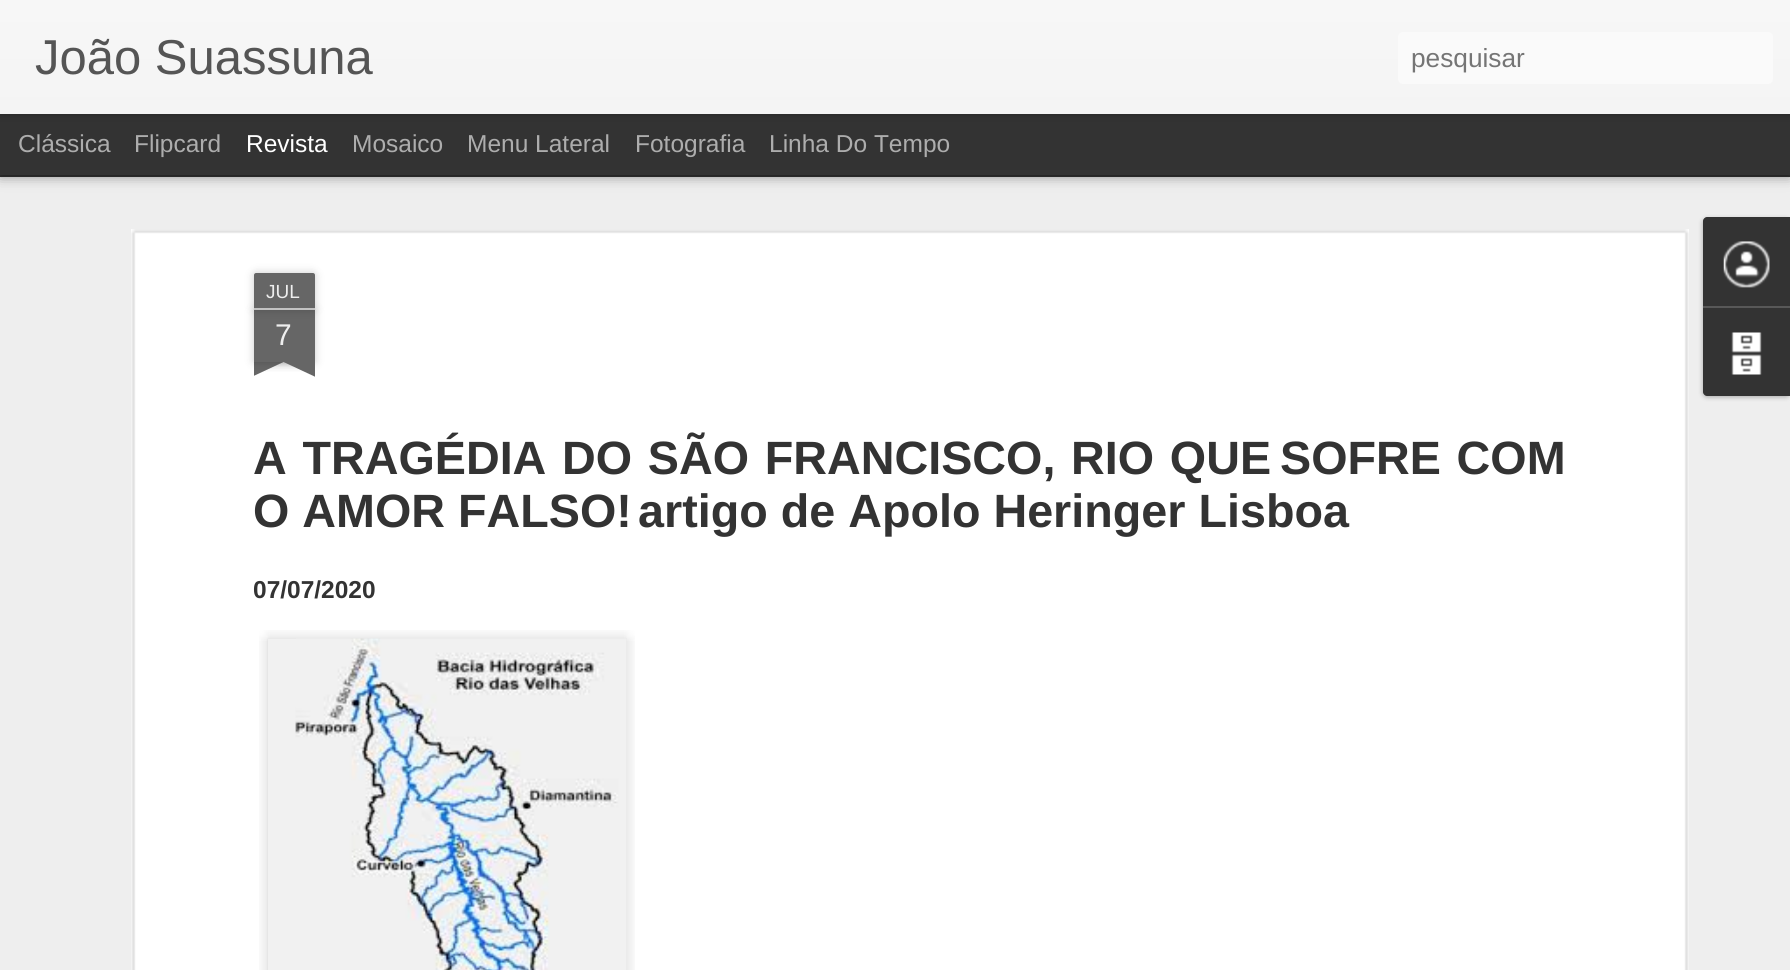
#include <cairo.h>
#include <math.h>
#include <stddef.h>


static void spaced_text(cairo_t *cr, double x, double y, const char *s, double letter, double word) {
    cairo_move_to(cr, x, y);
    while (*s) {
        char ch[5] = {0};
        int n = 0;
        do ch[n++] = *s++; while ((*s & 0xC0) == 0x80);
        cairo_show_text(cr, ch);
        cairo_rel_move_to(cr, letter + word * (*ch == ' '), 0);
    }
}

static void round_rect(cairo_t *cr, double x, double y, double w, double h, double r) {
    cairo_new_sub_path(cr);
    cairo_arc(cr, x + w - r, y + h - r, r, 0, M_PI / 2);
    cairo_arc(cr, x + r, y + h - r, r, M_PI / 2, M_PI);
    cairo_arc(cr, x + r, y + r, r, M_PI, 1.5 * M_PI);
    cairo_arc(cr, x + w - r, y + r, r, 1.5 * M_PI, 2 * M_PI);
    cairo_close_path(cr);
}

static void shadow(cairo_t *cr, double x, double y, double w, double h, double r, double blur, double alpha) {
    cairo_push_group_with_content(cr, CAIRO_CONTENT_ALPHA);
    cairo_set_operator(cr, CAIRO_OPERATOR_SOURCE);
    for (int i = 15; i >= -15 && fmin(w, h) + blur * i / 3 > 0; i -= 2) {
        double e = blur * i / 6;
        cairo_set_source_rgba(cr, 0, 0, 0, alpha * erfc((i - 1) / 8.5) / 2);
        round_rect(cr, x - e, y - e, w + 2 * e, h + 2 * e, fmax(0, fmin(r + e + blur * .6, fmin(w, h) / 2 + e)));
        cairo_fill(cr);
    }
    cairo_pattern_t *soft = cairo_pop_group(cr);
    cairo_mask(cr, soft);
    cairo_pattern_destroy(soft);
}

static void picture(cairo_t *cr, const char *path, double x, double y, double w, double h) {
    cairo_surface_t *image = cairo_image_surface_create_from_png(path);
    cairo_save(cr);
    cairo_set_source_surface(cr, image, x, y);
    cairo_rectangle(cr, x, y, w, h);
    cairo_fill(cr);
    cairo_restore(cr);
    cairo_surface_destroy(image);
}

int main(void) {
    cairo_surface_t *surface = cairo_image_surface_create(CAIRO_FORMAT_RGB24, 1790, 970);
    cairo_t *cr = cairo_create(surface);
    cairo_font_options_t *options = cairo_font_options_create();
    cairo_font_options_set_hint_metrics(options, CAIRO_HINT_METRICS_OFF);
    cairo_font_options_set_hint_style(options, CAIRO_HINT_STYLE_NONE);
    cairo_set_font_options(cr, options);
    cairo_set_miter_limit(cr, 4);
    cairo_pattern_t *gradient;
    cairo_set_source_rgb(cr, 0.2, 0.2, 0.2);
    cairo_paint(cr);
    cairo_set_source_rgb(cr, 0.933, 0.933, 0.933);
    cairo_rectangle(cr, 0, 177, 1790, 793);
    cairo_fill(cr);
    cairo_set_source_rgb(cr, 0, 0, 0);
    shadow(cr, 0, 114, 1790, 61, 0, 7, 0.5);
    cairo_set_source_rgb(cr, 0.2, 0.2, 0.2);
    cairo_rectangle(cr, 0, 114, 1790, 61);
    cairo_fill(cr);
    cairo_set_source_rgb(cr, 0, 0, 0);
    shadow(cr, 0, 0, 1790, 114, 0, 4.5, 0.3);
    gradient = cairo_pattern_create_linear(0, 0, 0, 114);
    cairo_pattern_add_color_stop_rgba(gradient, 0, 0.969, 0.969, 0.969, 1);
    cairo_pattern_add_color_stop_rgba(gradient, 1, 0.957, 0.957, 0.957, 1);
    cairo_set_source(cr, gradient);
    cairo_pattern_destroy(gradient);
    cairo_rectangle(cr, 0, 0, 1790, 114);
    cairo_fill(cr);
    cairo_select_font_face(cr, "Liberation Sans", CAIRO_FONT_SLANT_NORMAL, CAIRO_FONT_WEIGHT_NORMAL);
    cairo_set_font_size(cr, 49);
    cairo_set_source_rgb(cr, 0.333, 0.333, 0.333);
    cairo_move_to(cr, 35, 74);
    cairo_show_text(cr, "João Suassuna");
    cairo_set_source_rgb(cr, 0.98, 0.98, 0.98);
    round_rect(cr, 1398, 32, 375, 52, 5);
    cairo_fill(cr);
    cairo_set_font_size(cr, 26.25);
    cairo_set_source_rgb(cr, 0.459, 0.459, 0.459);
    cairo_move_to(cr, 1411, 67);
    cairo_show_text(cr, "pesquisar");
    cairo_set_font_size(cr, 24.5);
    cairo_set_source_rgb(cr, 0.678, 0.678, 0.678);
    cairo_move_to(cr, 18, 152);
    cairo_show_text(cr, "Clássica");
    cairo_move_to(cr, 134, 152);
    cairo_show_text(cr, "Flipcard");
    cairo_set_source_rgb(cr, 1, 1, 1);
    cairo_move_to(cr, 246, 152);
    cairo_show_text(cr, "Revista");
    cairo_set_source_rgb(cr, 0.678, 0.678, 0.678);
    cairo_move_to(cr, 352, 152);
    cairo_show_text(cr, "Mosaico");
    cairo_move_to(cr, 467, 152);
    cairo_show_text(cr, "Menu Lateral");
    cairo_move_to(cr, 635, 152);
    cairo_show_text(cr, "Fotografia");
    cairo_move_to(cr, 769, 152);
    cairo_show_text(cr, "Linha Do Tempo");
    cairo_set_source_rgb(cr, 1, 1, 1);
    cairo_rectangle(cr, 131, 229, 1558, 741);
    cairo_fill(cr);
    picture(cr, "img1.png", 131, 229, 1558, 741);
    cairo_set_source_rgb(cr, 0, 0, 0);
    shadow(cr, 254, 310, 61, 52, 0, 4.5, 0.2);
    cairo_set_source_rgb(cr, 0.4, 0.4, 0.4);
    cairo_rectangle(cr, 254, 310, 61, 52);
    cairo_fill(cr);
    cairo_set_source_rgb(cr, 0, 0, 0);
    shadow(cr, 254, 273, 61, 37, 2, 4.5, 0.2);
    cairo_set_source_rgb(cr, 0.4, 0.4, 0.4);
    cairo_new_path(cr);
    cairo_move_to(cr, 256, 273);
    cairo_line_to(cr, 313, 273);
    cairo_curve_to(cr, 314, 273, 315, 274, 315, 275);
    cairo_line_to(cr, 315, 310);
    cairo_line_to(cr, 254, 310);
    cairo_line_to(cr, 254, 275);
    cairo_curve_to(cr, 254, 274, 255, 273, 256, 273);
    cairo_close_path(cr);
    cairo_fill(cr);
    cairo_set_source_rgb(cr, 0.761, 0.761, 0.761);
    cairo_rectangle(cr, 254, 308, 61, 2);
    cairo_fill(cr);
    cairo_set_font_size(cr, 19);
    cairo_set_source_rgb(cr, 0.933, 0.933, 0.933);
    cairo_move_to(cr, 266, 298);
    cairo_show_text(cr, "JUL");
    cairo_set_font_size(cr, 30);
    cairo_move_to(cr, 275, 345);
    cairo_show_text(cr, "7");
    cairo_save(cr);
    cairo_rectangle(cr, 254, 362, 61, 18);
    cairo_clip(cr);
    cairo_set_source_rgb(cr, 0, 0, 0);
    shadow(cr, 238, 345, 88, 17, 0, 4.5, 0.2);
    cairo_restore(cr);
    cairo_save(cr);
    cairo_rectangle(cr, 254, 362, 61, 18);
    cairo_clip(cr);
    cairo_set_source_rgb(cr, 0.4, 0.4, 0.4);
    cairo_new_path(cr);
    cairo_move_to(cr, 238, 364);
    cairo_line_to(cr, 317, 327);
    cairo_line_to(cr, 324, 343);
    cairo_line_to(cr, 245, 380);
    cairo_close_path(cr);
    cairo_fill(cr);
    cairo_restore(cr);
    cairo_save(cr);
    cairo_rectangle(cr, 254, 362, 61, 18);
    cairo_clip(cr);
    cairo_set_source_rgb(cr, 0, 0, 0);
    shadow(cr, 243, 345, 88, 17, 0, 4.5, 0.2);
    cairo_restore(cr);
    cairo_save(cr);
    cairo_rectangle(cr, 254, 362, 61, 18);
    cairo_clip(cr);
    cairo_set_source_rgb(cr, 0.4, 0.4, 0.4);
    cairo_new_path(cr);
    cairo_move_to(cr, 250, 327);
    cairo_line_to(cr, 329, 364);
    cairo_line_to(cr, 322, 380);
    cairo_line_to(cr, 243, 343);
    cairo_close_path(cr);
    cairo_fill(cr);
    cairo_restore(cr);
    cairo_select_font_face(cr, "Liberation Sans", CAIRO_FONT_SLANT_NORMAL, CAIRO_FONT_WEIGHT_BOLD);
    cairo_set_font_size(cr, 46.7);
    cairo_set_source_rgb(cr, 0.2, 0.2, 0.2);
    spaced_text(cr, 253, 474, "A TRAGÉDIA DO SÃO FRANCISCO, RIO QUE", 0, 2.75);
    spaced_text(cr, 1280, 474, "SOFRE COM", 0, 2.75);
    cairo_move_to(cr, 253, 527);
    cairo_show_text(cr, "O AMOR FALSO!");
    cairo_move_to(cr, 638, 527);
    cairo_show_text(cr, "artigo de Apolo Heringer Lisboa");
    cairo_set_font_size(cr, 24.5);
    cairo_move_to(cr, 253, 598);
    cairo_show_text(cr, "07/07/2020");
    picture(cr, "img2.png", 259, 630, 376, 340);
    picture(cr, "img3.png", 296, 638, 331, 332);
    cairo_set_source_rgb(cr, 0, 0, 0);
    shadow(cr, 1703, 219, 87, 178, 4, 2.5, 0.3);
    cairo_set_source_rgb(cr, 0.2, 0.2, 0.2);
    cairo_new_path(cr);
    cairo_move_to(cr, 1707, 217);
    cairo_line_to(cr, 1790, 217);
    cairo_line_to(cr, 1790, 306);
    cairo_line_to(cr, 1703, 306);
    cairo_line_to(cr, 1703, 221);
    cairo_curve_to(cr, 1703, 219, 1705, 217, 1707, 217);
    cairo_close_path(cr);
    cairo_fill(cr);
    picture(cr, "img4.png", 1723, 241, 47, 47);
    cairo_new_path(cr);
    cairo_move_to(cr, 1703, 306);
    cairo_line_to(cr, 1790, 306);
    cairo_line_to(cr, 1790, 396);
    cairo_line_to(cr, 1707, 396);
    cairo_curve_to(cr, 1705, 396, 1703, 394, 1703, 392);
    cairo_close_path(cr);
    cairo_fill(cr);
    cairo_set_source_rgb(cr, 0.345, 0.345, 0.345);
    cairo_rectangle(cr, 1703, 306, 87, 2);
    cairo_fill(cr);
    picture(cr, "img5.png", 1731, 332, 31, 43);
    cairo_surface_write_to_png(surface, "page.png");
    cairo_font_options_destroy(options);
    cairo_destroy(cr);
    cairo_surface_destroy(surface);
    return 0;
}
